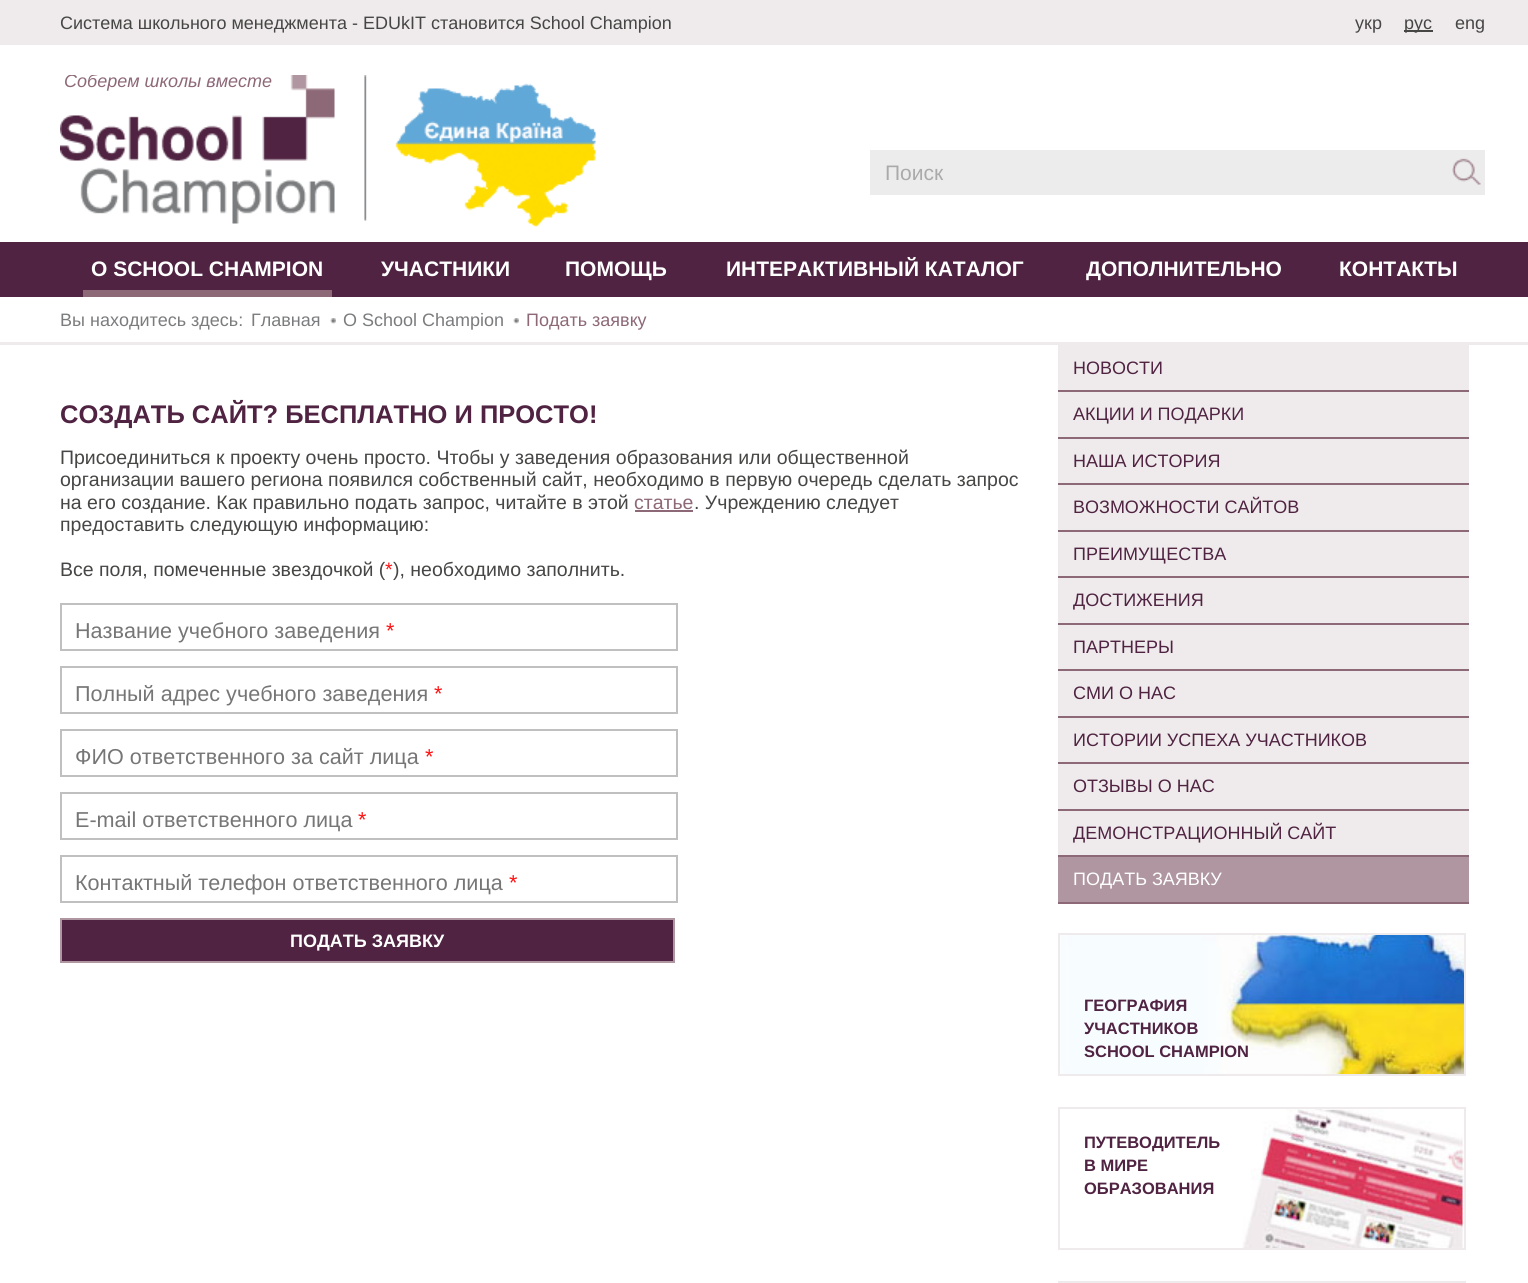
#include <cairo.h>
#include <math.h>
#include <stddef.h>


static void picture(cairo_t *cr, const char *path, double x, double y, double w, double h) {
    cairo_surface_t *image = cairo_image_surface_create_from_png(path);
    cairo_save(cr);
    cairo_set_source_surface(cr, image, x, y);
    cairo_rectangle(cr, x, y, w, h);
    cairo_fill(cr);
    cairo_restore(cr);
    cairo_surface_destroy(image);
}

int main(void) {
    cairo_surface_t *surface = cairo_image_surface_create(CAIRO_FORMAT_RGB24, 1528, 1283);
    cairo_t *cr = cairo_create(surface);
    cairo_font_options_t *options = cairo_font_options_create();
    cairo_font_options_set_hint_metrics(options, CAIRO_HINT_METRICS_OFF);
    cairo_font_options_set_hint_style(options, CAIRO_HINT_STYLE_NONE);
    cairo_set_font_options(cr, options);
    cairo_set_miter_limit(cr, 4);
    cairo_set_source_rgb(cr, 1, 1, 1);
    cairo_paint(cr);
    cairo_set_source_rgb(cr, 0.937, 0.918, 0.925);
    cairo_rectangle(cr, 0, 0, 1528, 45);
    cairo_fill(cr);
    cairo_select_font_face(cr, "Liberation Sans", CAIRO_FONT_SLANT_NORMAL, CAIRO_FONT_WEIGHT_NORMAL);
    cairo_set_font_size(cr, 18);
    cairo_set_source_rgb(cr, 0.275, 0.275, 0.271);
    cairo_move_to(cr, 60, 29);
    cairo_show_text(cr, "Система школьного менеджмента - EDUkIT становится School Champion");
    cairo_move_to(cr, 1355, 29);
    cairo_show_text(cr, "укр");
    cairo_rectangle(cr, 1404, 30, 29, 2);
    cairo_fill(cr);
    cairo_move_to(cr, 1404, 29);
    cairo_show_text(cr, "рус");
    cairo_move_to(cr, 1455, 29);
    cairo_show_text(cr, "eng");
    picture(cr, "img1.png", 60, 75, 275, 149);
    cairo_save(cr);
    cairo_rectangle(cr, 60, 75, 1425, 152);
    cairo_clip(cr);
    cairo_select_font_face(cr, "Liberation Sans", CAIRO_FONT_SLANT_ITALIC, CAIRO_FONT_WEIGHT_NORMAL);
    cairo_set_source_rgb(cr, 0.553, 0.408, 0.467);
    cairo_move_to(cr, 64, 87);
    cairo_show_text(cr, "Соберем школы вместе");
    cairo_restore(cr);
    picture(cr, "img2.png", 364, 75, 232, 152);
    cairo_set_source_rgb(cr, 0.922, 0.922, 0.922);
    cairo_rectangle(cr, 870, 150, 615, 45);
    cairo_fill(cr);
    cairo_set_font_size(cr, 21);
    cairo_set_source_rgb(cr, 0.667, 0.667, 0.667);
    cairo_move_to(cr, 885, 180);
    cairo_show_text(cr, "Поиск");
    picture(cr, "img3.png", 1452, 158, 29, 27);
    cairo_set_source_rgb(cr, 0.31, 0.137, 0.255);
    cairo_rectangle(cr, 0, 242, 1528, 55);
    cairo_fill(cr);
    cairo_set_source_rgb(cr, 0.553, 0.408, 0.467);
    cairo_rectangle(cr, 83, 290, 249, 7);
    cairo_fill(cr);
    cairo_select_font_face(cr, "Liberation Sans", CAIRO_FONT_SLANT_NORMAL, CAIRO_FONT_WEIGHT_BOLD);
    cairo_set_source_rgb(cr, 1, 1, 1);
    cairo_move_to(cr, 91, 276);
    cairo_show_text(cr, "О SCHOOL CHAMPION");
    cairo_move_to(cr, 381, 276);
    cairo_show_text(cr, "УЧАСТНИКИ");
    cairo_move_to(cr, 565, 276);
    cairo_show_text(cr, "ПОМОЩЬ");
    cairo_move_to(cr, 726, 276);
    cairo_show_text(cr, "ИНТЕРАКТИВНЫЙ КАТАЛОГ");
    cairo_move_to(cr, 1086, 276);
    cairo_show_text(cr, "ДОПОЛНИТЕЛЬНО");
    cairo_move_to(cr, 1339, 276);
    cairo_show_text(cr, "КОНТАКТЫ");
    cairo_set_source_rgb(cr, 0.937, 0.918, 0.925);
    cairo_rectangle(cr, 0, 342, 1528, 3);
    cairo_fill(cr);
    cairo_select_font_face(cr, "Liberation Sans", CAIRO_FONT_SLANT_NORMAL, CAIRO_FONT_WEIGHT_NORMAL);
    cairo_set_font_size(cr, 18);
    cairo_set_source_rgb(cr, 0.482, 0.486, 0.494);
    cairo_move_to(cr, 60, 326);
    cairo_show_text(cr, "Вы находитесь здесь:");
    picture(cr, "img4.png", 330, 318, 6, 6);
    cairo_move_to(cr, 251, 326);
    cairo_show_text(cr, "Главная");
    picture(cr, "img5.png", 513, 318, 6, 6);
    cairo_move_to(cr, 343, 326);
    cairo_show_text(cr, "О School Champion");
    cairo_set_source_rgb(cr, 0.553, 0.408, 0.467);
    cairo_move_to(cr, 526, 326);
    cairo_show_text(cr, "Подать заявку");
    cairo_select_font_face(cr, "Liberation Sans", CAIRO_FONT_SLANT_NORMAL, CAIRO_FONT_WEIGHT_BOLD);
    cairo_set_font_size(cr, 25.5);
    cairo_set_source_rgb(cr, 0.31, 0.137, 0.255);
    cairo_move_to(cr, 60, 423);
    cairo_show_text(cr, "СОЗДАТЬ САЙТ? БЕСПЛАТНО И ПРОСТО!");
    cairo_select_font_face(cr, "Liberation Sans", CAIRO_FONT_SLANT_NORMAL, CAIRO_FONT_WEIGHT_NORMAL);
    cairo_set_font_size(cr, 19.5);
    cairo_set_source_rgb(cr, 0.275, 0.275, 0.271);
    cairo_move_to(cr, 60, 464);
    cairo_show_text(cr, "Присоединиться к проекту очень просто. Чтобы у заведения образования или общественной");
    cairo_move_to(cr, 60, 486);
    cairo_show_text(cr, "организации вашего региона появился собственный сайт, необходимо в первую очередь сделать запрос");
    cairo_move_to(cr, 60, 509);
    cairo_show_text(cr, "на его создание. Как правильно подать запрос, читайте в этой");
    cairo_set_source_rgb(cr, 0.553, 0.408, 0.467);
    cairo_move_to(cr, 634, 509);
    cairo_show_text(cr, "статье");
    cairo_rectangle(cr, 635, 510, 58, 2);
    cairo_fill(cr);
    cairo_set_source_rgb(cr, 0.275, 0.275, 0.271);
    cairo_move_to(cr, 694, 509);
    cairo_show_text(cr, ". Учреждению следует");
    cairo_move_to(cr, 60, 531);
    cairo_show_text(cr, "предоставить следующую информацию:");
    cairo_move_to(cr, 60, 576);
    cairo_show_text(cr, "Все поля, помеченные звездочкой (");
    cairo_set_source_rgb(cr, 1, 0.067, 0.067);
    cairo_move_to(cr, 385, 576);
    cairo_show_text(cr, "*");
    cairo_set_source_rgb(cr, 0.275, 0.275, 0.271);
    cairo_move_to(cr, 393, 576);
    cairo_show_text(cr, "), необходимо заполнить.");
    cairo_rectangle(cr, 61, 604, 616, 46);
    cairo_set_source_rgb(cr, 0.757, 0.753, 0.753);
    cairo_stroke(cr);
    cairo_set_font_size(cr, 21.6);
    cairo_set_source_rgb(cr, 0.463, 0.463, 0.463);
    cairo_move_to(cr, 75, 638);
    cairo_show_text(cr, "Название учебного заведения");
    cairo_set_source_rgb(cr, 1, 0.067, 0.067);
    cairo_move_to(cr, 386, 638);
    cairo_show_text(cr, "*");
    cairo_rectangle(cr, 61, 667, 616, 46);
    cairo_set_source_rgb(cr, 0.757, 0.753, 0.753);
    cairo_stroke(cr);
    cairo_set_source_rgb(cr, 0.463, 0.463, 0.463);
    cairo_move_to(cr, 75, 701);
    cairo_show_text(cr, "Полный адрес учебного заведения");
    cairo_set_source_rgb(cr, 1, 0.067, 0.067);
    cairo_move_to(cr, 434, 701);
    cairo_show_text(cr, "*");
    cairo_rectangle(cr, 61, 730, 616, 46);
    cairo_set_source_rgb(cr, 0.757, 0.753, 0.753);
    cairo_stroke(cr);
    cairo_set_source_rgb(cr, 0.463, 0.463, 0.463);
    cairo_move_to(cr, 75, 764);
    cairo_show_text(cr, "ФИО ответственного за сайт лица");
    cairo_set_source_rgb(cr, 1, 0.067, 0.067);
    cairo_move_to(cr, 425, 764);
    cairo_show_text(cr, "*");
    cairo_rectangle(cr, 61, 793, 616, 46);
    cairo_set_source_rgb(cr, 0.757, 0.753, 0.753);
    cairo_stroke(cr);
    cairo_set_source_rgb(cr, 0.463, 0.463, 0.463);
    cairo_move_to(cr, 75, 827);
    cairo_show_text(cr, "E-mail ответственного лица");
    cairo_set_source_rgb(cr, 1, 0.067, 0.067);
    cairo_move_to(cr, 358, 827);
    cairo_show_text(cr, "*");
    cairo_rectangle(cr, 61, 856, 616, 46);
    cairo_set_source_rgb(cr, 0.757, 0.753, 0.753);
    cairo_stroke(cr);
    cairo_set_source_rgb(cr, 0.463, 0.463, 0.463);
    cairo_move_to(cr, 75, 890);
    cairo_show_text(cr, "Контактный телефон ответственного лица");
    cairo_set_source_rgb(cr, 1, 0.067, 0.067);
    cairo_move_to(cr, 509, 890);
    cairo_show_text(cr, "*");
    cairo_set_source_rgb(cr, 0.31, 0.137, 0.255);
    cairo_rectangle(cr, 61, 919, 613, 43);
    cairo_fill_preserve(cr);
    cairo_set_source_rgb(cr, 0.686, 0.588, 0.627);
    cairo_stroke(cr);
    cairo_select_font_face(cr, "Liberation Sans", CAIRO_FONT_SLANT_NORMAL, CAIRO_FONT_WEIGHT_BOLD);
    cairo_set_font_size(cr, 18);
    cairo_set_source_rgb(cr, 1, 1, 1);
    cairo_move_to(cr, 290, 947);
    cairo_show_text(cr, "ПОДАТЬ ЗАЯВКУ");
    cairo_set_source_rgb(cr, 0.937, 0.918, 0.925);
    cairo_rectangle(cr, 1058, 345, 411, 510);
    cairo_fill(cr);
    cairo_set_source_rgb(cr, 0.553, 0.408, 0.467);
    cairo_rectangle(cr, 1058, 390, 411, 2);
    cairo_fill(cr);
    cairo_select_font_face(cr, "Liberation Sans", CAIRO_FONT_SLANT_NORMAL, CAIRO_FONT_WEIGHT_NORMAL);
    cairo_set_source_rgb(cr, 0.31, 0.137, 0.255);
    cairo_move_to(cr, 1073, 374);
    cairo_show_text(cr, "НОВОСТИ");
    cairo_set_source_rgb(cr, 0.553, 0.408, 0.467);
    cairo_rectangle(cr, 1058, 437, 411, 2);
    cairo_fill(cr);
    cairo_set_source_rgb(cr, 0.31, 0.137, 0.255);
    cairo_move_to(cr, 1073, 420);
    cairo_show_text(cr, "АКЦИИ И ПОДАРКИ");
    cairo_set_source_rgb(cr, 0.553, 0.408, 0.467);
    cairo_rectangle(cr, 1058, 483, 411, 2);
    cairo_fill(cr);
    cairo_set_source_rgb(cr, 0.31, 0.137, 0.255);
    cairo_move_to(cr, 1073, 467);
    cairo_show_text(cr, "НАША ИСТОРИЯ");
    cairo_set_source_rgb(cr, 0.553, 0.408, 0.467);
    cairo_rectangle(cr, 1058, 530, 411, 2);
    cairo_fill(cr);
    cairo_set_source_rgb(cr, 0.31, 0.137, 0.255);
    cairo_move_to(cr, 1073, 513);
    cairo_show_text(cr, "ВОЗМОЖНОСТИ САЙТОВ");
    cairo_set_source_rgb(cr, 0.553, 0.408, 0.467);
    cairo_rectangle(cr, 1058, 576, 411, 2);
    cairo_fill(cr);
    cairo_set_source_rgb(cr, 0.31, 0.137, 0.255);
    cairo_move_to(cr, 1073, 560);
    cairo_show_text(cr, "ПРЕИМУЩЕСТВА");
    cairo_set_source_rgb(cr, 0.553, 0.408, 0.467);
    cairo_rectangle(cr, 1058, 623, 411, 2);
    cairo_fill(cr);
    cairo_set_source_rgb(cr, 0.31, 0.137, 0.255);
    cairo_move_to(cr, 1073, 606);
    cairo_show_text(cr, "ДОСТИЖЕНИЯ");
    cairo_set_source_rgb(cr, 0.553, 0.408, 0.467);
    cairo_rectangle(cr, 1058, 669, 411, 2);
    cairo_fill(cr);
    cairo_set_source_rgb(cr, 0.31, 0.137, 0.255);
    cairo_move_to(cr, 1073, 653);
    cairo_show_text(cr, "ПАРТНЕРЫ");
    cairo_set_source_rgb(cr, 0.553, 0.408, 0.467);
    cairo_rectangle(cr, 1058, 716, 411, 2);
    cairo_fill(cr);
    cairo_set_source_rgb(cr, 0.31, 0.137, 0.255);
    cairo_move_to(cr, 1073, 699);
    cairo_show_text(cr, "СМИ О НАС");
    cairo_set_source_rgb(cr, 0.553, 0.408, 0.467);
    cairo_rectangle(cr, 1058, 762, 411, 2);
    cairo_fill(cr);
    cairo_set_source_rgb(cr, 0.31, 0.137, 0.255);
    cairo_move_to(cr, 1073, 746);
    cairo_show_text(cr, "ИСТОРИИ УСПЕХА УЧАСТНИКОВ");
    cairo_set_source_rgb(cr, 0.553, 0.408, 0.467);
    cairo_rectangle(cr, 1058, 809, 411, 2);
    cairo_fill(cr);
    cairo_set_source_rgb(cr, 0.31, 0.137, 0.255);
    cairo_move_to(cr, 1073, 792);
    cairo_show_text(cr, "ОТЗЫВЫ О НАС");
    cairo_set_source_rgb(cr, 0.553, 0.408, 0.467);
    cairo_rectangle(cr, 1058, 855, 411, 2);
    cairo_fill(cr);
    cairo_set_source_rgb(cr, 0.31, 0.137, 0.255);
    cairo_move_to(cr, 1073, 839);
    cairo_show_text(cr, "ДЕМОНСТРАЦИОННЫЙ САЙТ");
    cairo_set_source_rgb(cr, 0.553, 0.408, 0.467);
    cairo_rectangle(cr, 1058, 902, 411, 2);
    cairo_fill(cr);
    cairo_set_source_rgb(cr, 0.686, 0.588, 0.627);
    cairo_rectangle(cr, 1058, 857, 411, 45);
    cairo_fill(cr);
    cairo_set_source_rgb(cr, 1, 1, 1);
    cairo_move_to(cr, 1073, 885);
    cairo_show_text(cr, "ПОДАТЬ ЗАЯВКУ");
    picture(cr, "img6.png", 1060, 935, 404, 139);
    cairo_rectangle(cr, 1059, 934, 406, 141);
    cairo_set_source_rgb(cr, 0.937, 0.918, 0.925);
    cairo_stroke(cr);
    cairo_select_font_face(cr, "Liberation Sans", CAIRO_FONT_SLANT_NORMAL, CAIRO_FONT_WEIGHT_BOLD);
    cairo_set_font_size(cr, 16.5);
    cairo_set_source_rgb(cr, 0.31, 0.137, 0.255);
    cairo_move_to(cr, 1084, 1011);
    cairo_show_text(cr, "ГЕОГРАФИЯ");
    cairo_move_to(cr, 1084, 1034);
    cairo_show_text(cr, "УЧАСТНИКОВ");
    cairo_move_to(cr, 1084, 1057);
    cairo_show_text(cr, "SCHOOL CHAMPION");
    picture(cr, "img7.png", 1242, 1109, 222, 139);
    cairo_rectangle(cr, 1059, 1108, 406, 141);
    cairo_set_source_rgb(cr, 0.937, 0.918, 0.925);
    cairo_stroke(cr);
    cairo_set_source_rgb(cr, 0.31, 0.137, 0.255);
    cairo_move_to(cr, 1084, 1148);
    cairo_show_text(cr, "ПУТЕВОДИТЕЛЬ");
    cairo_move_to(cr, 1084, 1171);
    cairo_show_text(cr, "В МИРЕ");
    cairo_move_to(cr, 1084, 1194);
    cairo_show_text(cr, "ОБРАЗОВАНИЯ");
    cairo_rectangle(cr, 1059, 1282, 406, 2);
    cairo_set_source_rgb(cr, 0.937, 0.918, 0.925);
    cairo_stroke(cr);
    cairo_surface_write_to_png(surface, "page.png");
    cairo_font_options_destroy(options);
    cairo_destroy(cr);
    cairo_surface_destroy(surface);
    return 0;
}
